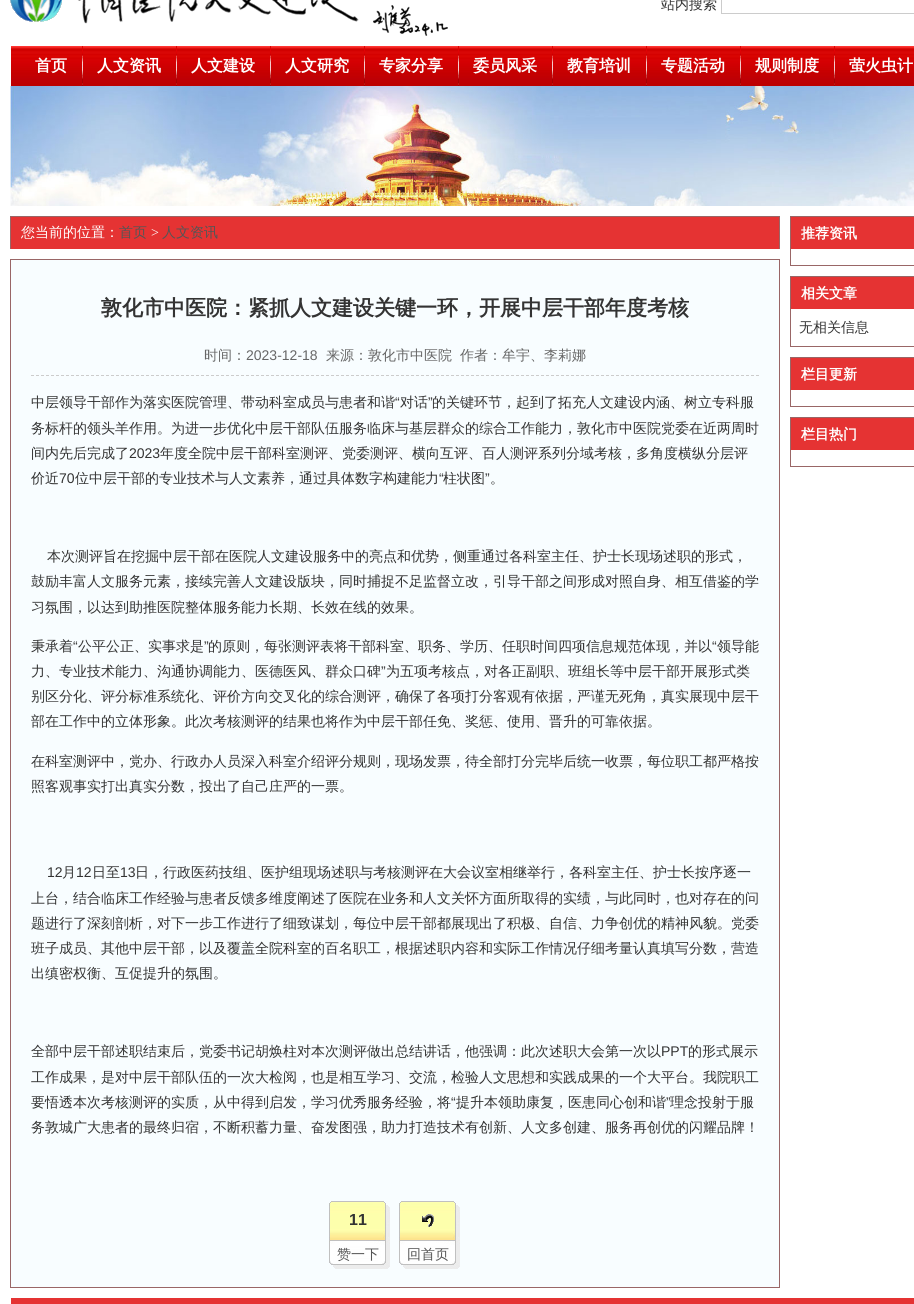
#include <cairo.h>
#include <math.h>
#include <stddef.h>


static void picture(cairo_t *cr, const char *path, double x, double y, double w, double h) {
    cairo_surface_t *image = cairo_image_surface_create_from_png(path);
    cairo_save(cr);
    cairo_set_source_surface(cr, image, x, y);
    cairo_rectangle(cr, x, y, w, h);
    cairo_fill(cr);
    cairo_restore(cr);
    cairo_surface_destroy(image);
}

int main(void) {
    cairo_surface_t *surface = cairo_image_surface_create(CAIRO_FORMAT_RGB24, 914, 1304);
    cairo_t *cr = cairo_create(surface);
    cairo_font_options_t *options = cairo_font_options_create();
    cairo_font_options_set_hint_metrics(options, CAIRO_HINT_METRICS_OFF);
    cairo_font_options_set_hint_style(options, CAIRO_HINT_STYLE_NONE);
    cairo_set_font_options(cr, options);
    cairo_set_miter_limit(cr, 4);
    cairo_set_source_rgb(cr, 1, 1, 1);
    cairo_paint(cr);
    picture(cr, "img1.png", 10, 0, 438, 36);
    cairo_select_font_face(cr, "WenQuanYi Zen Hei Medium", CAIRO_FONT_SLANT_NORMAL, CAIRO_FONT_WEIGHT_NORMAL);
    cairo_set_font_size(cr, 14);
    cairo_set_source_rgb(cr, 0.2, 0.2, 0.2);
    cairo_move_to(cr, 661, 9);
    cairo_show_text(cr, "站内搜索");
    cairo_rectangle(cr, 721.5, -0.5, 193, 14);
    cairo_set_source_rgb(cr, 0.8, 0.8, 0.8);
    cairo_set_line_width(cr, 1);
    cairo_stroke(cr);
    picture(cr, "img2.png", 11, 46, 903, 40);
    picture(cr, "img3.png", 82, 46, 1, 40);
    cairo_select_font_face(cr, "WenQuanYi Zen Hei", CAIRO_FONT_SLANT_NORMAL, CAIRO_FONT_WEIGHT_BOLD);
    cairo_set_font_size(cr, 16);
    cairo_set_source_rgb(cr, 1, 1, 1);
    cairo_move_to(cr, 35, 71);
    cairo_show_text(cr, "首页");
    picture(cr, "img3.png", 176, 46, 1, 40);
    cairo_move_to(cr, 97, 71);
    cairo_show_text(cr, "人文资讯");
    picture(cr, "img3.png", 270, 46, 1, 40);
    cairo_move_to(cr, 191, 71);
    cairo_show_text(cr, "人文建设");
    picture(cr, "img3.png", 364, 46, 1, 40);
    cairo_move_to(cr, 285, 71);
    cairo_show_text(cr, "人文研究");
    picture(cr, "img3.png", 458, 46, 1, 40);
    cairo_move_to(cr, 379, 71);
    cairo_show_text(cr, "专家分享");
    picture(cr, "img3.png", 552, 46, 1, 40);
    cairo_move_to(cr, 473, 71);
    cairo_show_text(cr, "委员风采");
    picture(cr, "img3.png", 646, 46, 1, 40);
    cairo_move_to(cr, 567, 71);
    cairo_show_text(cr, "教育培训");
    picture(cr, "img3.png", 740, 46, 1, 40);
    cairo_move_to(cr, 661, 71);
    cairo_show_text(cr, "专题活动");
    picture(cr, "img3.png", 834, 46, 1, 40);
    cairo_move_to(cr, 755, 71);
    cairo_show_text(cr, "规则制度");
    cairo_move_to(cr, 849, 71);
    cairo_show_text(cr, "萤火虫计");
    picture(cr, "img4.png", 10, 86, 904, 120);
    cairo_set_source_rgb(cr, 0.898, 0.2, 0.2);
    cairo_rectangle(cr, 11, 217, 768, 32);
    cairo_fill(cr);
    cairo_set_source_rgb(cr, 0.6, 0.4, 0.4);
    cairo_rectangle(cr, 10, 216, 770, 1);
    cairo_fill(cr);
    cairo_rectangle(cr, 779, 216, 1, 33);
    cairo_fill(cr);
    cairo_rectangle(cr, 10, 216, 1, 33);
    cairo_fill(cr);
    cairo_select_font_face(cr, "WenQuanYi Zen Hei Medium", CAIRO_FONT_SLANT_NORMAL, CAIRO_FONT_WEIGHT_NORMAL);
    cairo_set_font_size(cr, 14);
    cairo_set_source_rgb(cr, 1, 1, 1);
    cairo_move_to(cr, 21, 237);
    cairo_show_text(cr, "您当前的位置：");
    cairo_set_source_rgb(cr, 0.333, 0.333, 0.333);
    cairo_move_to(cr, 119, 237);
    cairo_show_text(cr, "首页");
    cairo_select_font_face(cr, "Liberation Serif", CAIRO_FONT_SLANT_NORMAL, CAIRO_FONT_WEIGHT_NORMAL);
    cairo_set_source_rgb(cr, 1, 1, 1);
    cairo_move_to(cr, 151, 237);
    cairo_show_text(cr, ">");
    cairo_select_font_face(cr, "WenQuanYi Zen Hei Medium", CAIRO_FONT_SLANT_NORMAL, CAIRO_FONT_WEIGHT_NORMAL);
    cairo_set_source_rgb(cr, 0.333, 0.333, 0.333);
    cairo_move_to(cr, 162, 237);
    cairo_show_text(cr, "人文资讯");
    cairo_set_source_rgb(cr, 0.969, 0.992, 1);
    cairo_rectangle(cr, 10.5, 259.5, 769, 1028);
    cairo_fill_preserve(cr);
    cairo_set_source_rgb(cr, 0.6, 0.4, 0.4);
    cairo_stroke(cr);
    cairo_select_font_face(cr, "WenQuanYi Zen Hei", CAIRO_FONT_SLANT_NORMAL, CAIRO_FONT_WEIGHT_BOLD);
    cairo_set_font_size(cr, 21);
    cairo_set_source_rgb(cr, 0.2, 0.2, 0.2);
    cairo_move_to(cr, 101, 315);
    cairo_show_text(cr, "敦化市中医院：紧抓人文建设关键一环，开展中层干部年度考核");
    cairo_new_path(cr);
    cairo_move_to(cr, 31, 375.5);
    cairo_line_to(cr, 759, 375.5);
    cairo_set_source_rgb(cr, 0.8, 0.8, 0.8);
    cairo_set_dash(cr, (double[]){3, 2}, 2, 0);
    cairo_stroke(cr);
    cairo_select_font_face(cr, "WenQuanYi Zen Hei Medium", CAIRO_FONT_SLANT_NORMAL, CAIRO_FONT_WEIGHT_NORMAL);
    cairo_set_font_size(cr, 14);
    cairo_set_source_rgb(cr, 0.4, 0.4, 0.4);
    cairo_move_to(cr, 204, 360);
    cairo_show_text(cr, "时间：");
    cairo_select_font_face(cr, "Liberation Sans", CAIRO_FONT_SLANT_NORMAL, CAIRO_FONT_WEIGHT_NORMAL);
    cairo_move_to(cr, 246, 360);
    cairo_show_text(cr, "2023-12-18");
    cairo_select_font_face(cr, "WenQuanYi Zen Hei Medium", CAIRO_FONT_SLANT_NORMAL, CAIRO_FONT_WEIGHT_NORMAL);
    cairo_move_to(cr, 326, 360);
    cairo_show_text(cr, "来源：敦化市中医院");
    cairo_move_to(cr, 460, 360);
    cairo_show_text(cr, "作者：牟宇、李莉娜");
    cairo_set_source_rgb(cr, 0.2, 0.2, 0.2);
    cairo_move_to(cr, 31, 407);
    cairo_show_text(cr, "中层领导干部作为落实医院管理、带动科室成员与患者和谐");
    cairo_select_font_face(cr, "Liberation Sans", CAIRO_FONT_SLANT_NORMAL, CAIRO_FONT_WEIGHT_NORMAL);
    cairo_move_to(cr, 395, 407);
    cairo_show_text(cr, "“");
    cairo_select_font_face(cr, "WenQuanYi Zen Hei Medium", CAIRO_FONT_SLANT_NORMAL, CAIRO_FONT_WEIGHT_NORMAL);
    cairo_move_to(cr, 400, 407);
    cairo_show_text(cr, "对话");
    cairo_select_font_face(cr, "Liberation Sans", CAIRO_FONT_SLANT_NORMAL, CAIRO_FONT_WEIGHT_NORMAL);
    cairo_move_to(cr, 428, 407);
    cairo_show_text(cr, "”");
    cairo_select_font_face(cr, "WenQuanYi Zen Hei Medium", CAIRO_FONT_SLANT_NORMAL, CAIRO_FONT_WEIGHT_NORMAL);
    cairo_move_to(cr, 432, 407);
    cairo_show_text(cr, "的关键环节，起到了拓充人文建设内涵、树立专科服");
    cairo_move_to(cr, 31, 433);
    cairo_show_text(cr, "务标杆的领头羊作用。为进一步优化中层干部队伍服务临床与基层群众的综合工作能力，敦化市中医院党委在近两周时");
    cairo_move_to(cr, 31, 458);
    cairo_show_text(cr, "间内先后完成了");
    cairo_select_font_face(cr, "Liberation Sans", CAIRO_FONT_SLANT_NORMAL, CAIRO_FONT_WEIGHT_NORMAL);
    cairo_move_to(cr, 129, 458);
    cairo_show_text(cr, "2023");
    cairo_select_font_face(cr, "WenQuanYi Zen Hei Medium", CAIRO_FONT_SLANT_NORMAL, CAIRO_FONT_WEIGHT_NORMAL);
    cairo_move_to(cr, 160, 458);
    cairo_show_text(cr, "年度全院中层干部科室测评、党委测评、横向互评、百人测评系列分域考核，多角度横纵分层评");
    cairo_move_to(cr, 31, 483);
    cairo_show_text(cr, "价近");
    cairo_select_font_face(cr, "Liberation Sans", CAIRO_FONT_SLANT_NORMAL, CAIRO_FONT_WEIGHT_NORMAL);
    cairo_move_to(cr, 59, 483);
    cairo_show_text(cr, "70");
    cairo_select_font_face(cr, "WenQuanYi Zen Hei Medium", CAIRO_FONT_SLANT_NORMAL, CAIRO_FONT_WEIGHT_NORMAL);
    cairo_move_to(cr, 75, 483);
    cairo_show_text(cr, "位中层干部的专业技术与人文素养，通过具体数字构建能力");
    cairo_select_font_face(cr, "Liberation Sans", CAIRO_FONT_SLANT_NORMAL, CAIRO_FONT_WEIGHT_NORMAL);
    cairo_move_to(cr, 439, 483);
    cairo_show_text(cr, "“");
    cairo_select_font_face(cr, "WenQuanYi Zen Hei Medium", CAIRO_FONT_SLANT_NORMAL, CAIRO_FONT_WEIGHT_NORMAL);
    cairo_move_to(cr, 443, 483);
    cairo_show_text(cr, "柱状图");
    cairo_select_font_face(cr, "Liberation Sans", CAIRO_FONT_SLANT_NORMAL, CAIRO_FONT_WEIGHT_NORMAL);
    cairo_move_to(cr, 485, 483);
    cairo_show_text(cr, "”");
    cairo_select_font_face(cr, "WenQuanYi Zen Hei Medium", CAIRO_FONT_SLANT_NORMAL, CAIRO_FONT_WEIGHT_NORMAL);
    cairo_move_to(cr, 490, 483);
    cairo_show_text(cr, "。");
    cairo_move_to(cr, 47, 561);
    cairo_show_text(cr, "本次测评旨在挖掘中层干部在医院人文建设服务中的亮点和优势，侧重通过各科室主任、护士长现场述职的形式，");
    cairo_move_to(cr, 31, 586);
    cairo_show_text(cr, "鼓励丰富人文服务元素，接续完善人文建设版块，同时捕捉不足监督立改，引导干部之间形成对照自身、相互借鉴的学");
    cairo_move_to(cr, 31, 612);
    cairo_show_text(cr, "习氛围，以达到助推医院整体服务能力长期、长效在线的效果。");
    cairo_move_to(cr, 31, 651);
    cairo_show_text(cr, "秉承着");
    cairo_select_font_face(cr, "Liberation Sans", CAIRO_FONT_SLANT_NORMAL, CAIRO_FONT_WEIGHT_NORMAL);
    cairo_move_to(cr, 73, 651);
    cairo_show_text(cr, "“");
    cairo_select_font_face(cr, "WenQuanYi Zen Hei Medium", CAIRO_FONT_SLANT_NORMAL, CAIRO_FONT_WEIGHT_NORMAL);
    cairo_move_to(cr, 78, 651);
    cairo_show_text(cr, "公平公正、实事求是");
    cairo_select_font_face(cr, "Liberation Sans", CAIRO_FONT_SLANT_NORMAL, CAIRO_FONT_WEIGHT_NORMAL);
    cairo_move_to(cr, 204, 651);
    cairo_show_text(cr, "”");
    cairo_select_font_face(cr, "WenQuanYi Zen Hei Medium", CAIRO_FONT_SLANT_NORMAL, CAIRO_FONT_WEIGHT_NORMAL);
    cairo_move_to(cr, 208, 651);
    cairo_show_text(cr, "的原则，每张测评表将干部科室、职务、学历、任职时间四项信息规范体现，并以");
    cairo_select_font_face(cr, "Liberation Sans", CAIRO_FONT_SLANT_NORMAL, CAIRO_FONT_WEIGHT_NORMAL);
    cairo_move_to(cr, 712, 651);
    cairo_show_text(cr, "“");
    cairo_select_font_face(cr, "WenQuanYi Zen Hei Medium", CAIRO_FONT_SLANT_NORMAL, CAIRO_FONT_WEIGHT_NORMAL);
    cairo_move_to(cr, 717, 651);
    cairo_show_text(cr, "领导能");
    cairo_move_to(cr, 31, 676);
    cairo_show_text(cr, "力、专业技术能力、沟通协调能力、医德医风、群众口碑");
    cairo_select_font_face(cr, "Liberation Sans", CAIRO_FONT_SLANT_NORMAL, CAIRO_FONT_WEIGHT_NORMAL);
    cairo_move_to(cr, 381, 676);
    cairo_show_text(cr, "”");
    cairo_select_font_face(cr, "WenQuanYi Zen Hei Medium", CAIRO_FONT_SLANT_NORMAL, CAIRO_FONT_WEIGHT_NORMAL);
    cairo_move_to(cr, 386, 676);
    cairo_show_text(cr, "为五项考核点，对各正副职、班组长等中层干部开展形式类");
    cairo_move_to(cr, 31, 701);
    cairo_show_text(cr, "别区分化、评分标准系统化、评价方向交叉化的综合测评，确保了各项打分客观有依据，严谨无死角，真实展现中层干");
    cairo_move_to(cr, 31, 726);
    cairo_show_text(cr, "部在工作中的立体形象。此次考核测评的结果也将作为中层干部任免、奖惩、使用、晋升的可靠依据。");
    cairo_move_to(cr, 31, 766);
    cairo_show_text(cr, "在科室测评中，党办、行政办人员深入科室介绍评分规则，现场发票，待全部打分完毕后统一收票，每位职工都严格按");
    cairo_move_to(cr, 31, 791);
    cairo_show_text(cr, "照客观事实打出真实分数，投出了自己庄严的一票。");
    cairo_select_font_face(cr, "Liberation Sans", CAIRO_FONT_SLANT_NORMAL, CAIRO_FONT_WEIGHT_NORMAL);
    cairo_move_to(cr, 47, 877);
    cairo_show_text(cr, "12");
    cairo_select_font_face(cr, "WenQuanYi Zen Hei Medium", CAIRO_FONT_SLANT_NORMAL, CAIRO_FONT_WEIGHT_NORMAL);
    cairo_move_to(cr, 62, 877);
    cairo_show_text(cr, "月");
    cairo_select_font_face(cr, "Liberation Sans", CAIRO_FONT_SLANT_NORMAL, CAIRO_FONT_WEIGHT_NORMAL);
    cairo_move_to(cr, 76, 877);
    cairo_show_text(cr, "12");
    cairo_select_font_face(cr, "WenQuanYi Zen Hei Medium", CAIRO_FONT_SLANT_NORMAL, CAIRO_FONT_WEIGHT_NORMAL);
    cairo_move_to(cr, 92, 877);
    cairo_show_text(cr, "日至");
    cairo_select_font_face(cr, "Liberation Sans", CAIRO_FONT_SLANT_NORMAL, CAIRO_FONT_WEIGHT_NORMAL);
    cairo_move_to(cr, 120, 877);
    cairo_show_text(cr, "13");
    cairo_select_font_face(cr, "WenQuanYi Zen Hei Medium", CAIRO_FONT_SLANT_NORMAL, CAIRO_FONT_WEIGHT_NORMAL);
    cairo_move_to(cr, 135, 877);
    cairo_show_text(cr, "日，行政医药技组、医护组现场述职与考核测评在大会议室相继举行，各科室主任、护士长按序逐一");
    cairo_move_to(cr, 31, 903);
    cairo_show_text(cr, "上台，结合临床工作经验与患者反馈多维度阐述了医院在业务和人文关怀方面所取得的实绩，与此同时，也对存在的问");
    cairo_move_to(cr, 31, 928);
    cairo_show_text(cr, "题进行了深刻剖析，对下一步工作进行了细致谋划，每位中层干部都展现出了积极、自信、力争创优的精神风貌。党委");
    cairo_move_to(cr, 31, 953);
    cairo_show_text(cr, "班子成员、其他中层干部，以及覆盖全院科室的百名职工，根据述职内容和实际工作情况仔细考量认真填写分数，营造");
    cairo_move_to(cr, 31, 978);
    cairo_show_text(cr, "出缜密权衡、互促提升的氛围。");
    cairo_move_to(cr, 31, 1056);
    cairo_show_text(cr, "全部中层干部述职结束后，党委书记胡焕柱对本次测评做出总结讲话，他强调：此次述职大会第一次以");
    cairo_select_font_face(cr, "Liberation Sans", CAIRO_FONT_SLANT_NORMAL, CAIRO_FONT_WEIGHT_NORMAL);
    cairo_move_to(cr, 661, 1056);
    cairo_show_text(cr, "PPT");
    cairo_select_font_face(cr, "WenQuanYi Zen Hei Medium", CAIRO_FONT_SLANT_NORMAL, CAIRO_FONT_WEIGHT_NORMAL);
    cairo_move_to(cr, 688, 1056);
    cairo_show_text(cr, "的形式展示");
    cairo_move_to(cr, 31, 1082);
    cairo_show_text(cr, "工作成果，是对中层干部队伍的一次大检阅，也是相互学习、交流，检验人文思想和实践成果的一个大平台。我院职工");
    cairo_move_to(cr, 31, 1107);
    cairo_show_text(cr, "要悟透本次考核测评的实质，从中得到启发，学习优秀服务经验，将");
    cairo_select_font_face(cr, "Liberation Sans", CAIRO_FONT_SLANT_NORMAL, CAIRO_FONT_WEIGHT_NORMAL);
    cairo_move_to(cr, 451, 1107);
    cairo_show_text(cr, "“");
    cairo_select_font_face(cr, "WenQuanYi Zen Hei Medium", CAIRO_FONT_SLANT_NORMAL, CAIRO_FONT_WEIGHT_NORMAL);
    cairo_move_to(cr, 456, 1107);
    cairo_show_text(cr, "提升本领助康复，医患同心创和谐");
    cairo_select_font_face(cr, "Liberation Sans", CAIRO_FONT_SLANT_NORMAL, CAIRO_FONT_WEIGHT_NORMAL);
    cairo_move_to(cr, 666, 1107);
    cairo_show_text(cr, "”");
    cairo_select_font_face(cr, "WenQuanYi Zen Hei Medium", CAIRO_FONT_SLANT_NORMAL, CAIRO_FONT_WEIGHT_NORMAL);
    cairo_move_to(cr, 670, 1107);
    cairo_show_text(cr, "理念投射于服");
    cairo_move_to(cr, 31, 1132);
    cairo_show_text(cr, "务敦城广大患者的最终归宿，不断积蓄力量、奋发图强，助力打造技术有创新、人文多创建、服务再创优的闪耀品牌！");
    picture(cr, "img5.png", 329, 1201, 61, 68);
    cairo_select_font_face(cr, "Liberation Sans", CAIRO_FONT_SLANT_NORMAL, CAIRO_FONT_WEIGHT_BOLD);
    cairo_set_font_size(cr, 16);
    cairo_move_to(cr, 349, 1225);
    cairo_show_text(cr, "11");
    cairo_select_font_face(cr, "WenQuanYi Zen Hei Medium", CAIRO_FONT_SLANT_NORMAL, CAIRO_FONT_WEIGHT_NORMAL);
    cairo_set_font_size(cr, 14);
    cairo_set_source_rgb(cr, 0.333, 0.333, 0.333);
    cairo_move_to(cr, 337, 1259);
    cairo_show_text(cr, "赞一下");
    picture(cr, "img5.png", 399, 1201, 61, 68);
    picture(cr, "img6.png", 422, 1214, 12, 13);
    cairo_move_to(cr, 407, 1259);
    cairo_show_text(cr, "回首页");
    cairo_set_source_rgb(cr, 0.898, 0.2, 0.2);
    cairo_rectangle(cr, 791, 217, 123, 32);
    cairo_fill(cr);
    cairo_set_source_rgb(cr, 0.6, 0.4, 0.4);
    cairo_rectangle(cr, 790, 216, 124, 1);
    cairo_fill(cr);
    cairo_rectangle(cr, 790, 216, 1, 33);
    cairo_fill(cr);
    cairo_select_font_face(cr, "WenQuanYi Zen Hei", CAIRO_FONT_SLANT_NORMAL, CAIRO_FONT_WEIGHT_BOLD);
    cairo_set_source_rgb(cr, 1, 1, 1);
    cairo_move_to(cr, 801, 238);
    cairo_show_text(cr, "推荐资讯");
    cairo_set_source_rgb(cr, 0.6, 0.4, 0.4);
    cairo_rectangle(cr, 790, 265, 124, 1);
    cairo_fill(cr);
    cairo_rectangle(cr, 790, 249, 1, 17);
    cairo_fill(cr);
    cairo_set_source_rgb(cr, 0.898, 0.2, 0.2);
    cairo_rectangle(cr, 791, 277, 123, 32);
    cairo_fill(cr);
    cairo_set_source_rgb(cr, 0.6, 0.4, 0.4);
    cairo_rectangle(cr, 790, 276, 124, 1);
    cairo_fill(cr);
    cairo_rectangle(cr, 790, 276, 1, 33);
    cairo_fill(cr);
    cairo_set_source_rgb(cr, 1, 1, 1);
    cairo_move_to(cr, 801, 298);
    cairo_show_text(cr, "相关文章");
    cairo_set_source_rgb(cr, 0.6, 0.4, 0.4);
    cairo_rectangle(cr, 790, 346, 124, 1);
    cairo_fill(cr);
    cairo_rectangle(cr, 790, 309, 1, 38);
    cairo_fill(cr);
    cairo_select_font_face(cr, "WenQuanYi Zen Hei Medium", CAIRO_FONT_SLANT_NORMAL, CAIRO_FONT_WEIGHT_NORMAL);
    cairo_set_source_rgb(cr, 0.2, 0.2, 0.2);
    cairo_move_to(cr, 799, 332);
    cairo_show_text(cr, "无相关信息");
    cairo_set_source_rgb(cr, 0.898, 0.2, 0.2);
    cairo_rectangle(cr, 791, 358, 123, 32);
    cairo_fill(cr);
    cairo_set_source_rgb(cr, 0.6, 0.4, 0.4);
    cairo_rectangle(cr, 790, 357, 124, 1);
    cairo_fill(cr);
    cairo_rectangle(cr, 790, 357, 1, 33);
    cairo_fill(cr);
    cairo_select_font_face(cr, "WenQuanYi Zen Hei", CAIRO_FONT_SLANT_NORMAL, CAIRO_FONT_WEIGHT_BOLD);
    cairo_set_source_rgb(cr, 1, 1, 1);
    cairo_move_to(cr, 801, 379);
    cairo_show_text(cr, "栏目更新");
    cairo_set_source_rgb(cr, 0.6, 0.4, 0.4);
    cairo_rectangle(cr, 790, 406, 124, 1);
    cairo_fill(cr);
    cairo_rectangle(cr, 790, 390, 1, 17);
    cairo_fill(cr);
    cairo_set_source_rgb(cr, 0.898, 0.2, 0.2);
    cairo_rectangle(cr, 791, 418, 123, 32);
    cairo_fill(cr);
    cairo_set_source_rgb(cr, 0.6, 0.4, 0.4);
    cairo_rectangle(cr, 790, 417, 124, 1);
    cairo_fill(cr);
    cairo_rectangle(cr, 790, 417, 1, 33);
    cairo_fill(cr);
    cairo_set_source_rgb(cr, 1, 1, 1);
    cairo_move_to(cr, 801, 439);
    cairo_show_text(cr, "栏目热门");
    cairo_set_source_rgb(cr, 0.6, 0.4, 0.4);
    cairo_rectangle(cr, 790, 466, 124, 1);
    cairo_fill(cr);
    cairo_rectangle(cr, 790, 450, 1, 17);
    cairo_fill(cr);
    cairo_set_source_rgb(cr, 0.898, 0.2, 0.2);
    cairo_rectangle(cr, 11, 1298, 903, 6);
    cairo_fill(cr);
    cairo_surface_write_to_png(surface, "page.png");
    cairo_font_options_destroy(options);
    cairo_destroy(cr);
    cairo_surface_destroy(surface);
    return 0;
}
